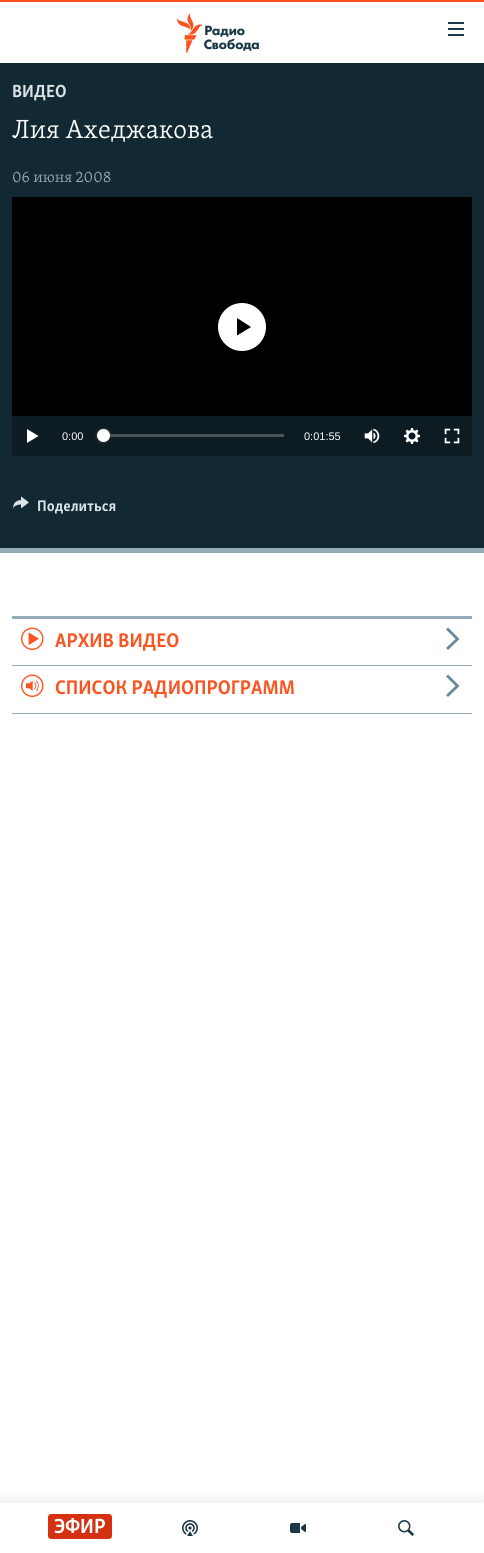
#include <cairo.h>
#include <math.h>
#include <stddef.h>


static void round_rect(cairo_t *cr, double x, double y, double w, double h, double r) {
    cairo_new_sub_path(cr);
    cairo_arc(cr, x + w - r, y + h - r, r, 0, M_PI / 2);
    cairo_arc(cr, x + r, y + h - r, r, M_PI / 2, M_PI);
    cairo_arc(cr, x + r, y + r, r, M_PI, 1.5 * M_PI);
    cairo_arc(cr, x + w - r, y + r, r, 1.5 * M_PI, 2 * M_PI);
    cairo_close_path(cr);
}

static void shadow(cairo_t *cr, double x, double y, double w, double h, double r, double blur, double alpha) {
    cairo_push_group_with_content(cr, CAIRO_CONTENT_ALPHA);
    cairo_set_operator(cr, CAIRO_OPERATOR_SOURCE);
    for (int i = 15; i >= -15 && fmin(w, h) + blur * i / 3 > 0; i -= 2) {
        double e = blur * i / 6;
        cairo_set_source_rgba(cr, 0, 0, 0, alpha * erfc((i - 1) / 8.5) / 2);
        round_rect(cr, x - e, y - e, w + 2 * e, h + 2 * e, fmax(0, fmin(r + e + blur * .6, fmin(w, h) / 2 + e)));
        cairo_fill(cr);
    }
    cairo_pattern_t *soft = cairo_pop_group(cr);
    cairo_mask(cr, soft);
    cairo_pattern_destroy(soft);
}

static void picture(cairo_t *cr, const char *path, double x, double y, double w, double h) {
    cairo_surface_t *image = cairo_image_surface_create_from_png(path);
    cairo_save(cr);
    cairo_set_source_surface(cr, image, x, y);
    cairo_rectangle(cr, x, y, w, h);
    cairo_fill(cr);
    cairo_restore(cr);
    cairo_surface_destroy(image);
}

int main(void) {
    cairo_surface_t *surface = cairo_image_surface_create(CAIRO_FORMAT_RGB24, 484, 1553);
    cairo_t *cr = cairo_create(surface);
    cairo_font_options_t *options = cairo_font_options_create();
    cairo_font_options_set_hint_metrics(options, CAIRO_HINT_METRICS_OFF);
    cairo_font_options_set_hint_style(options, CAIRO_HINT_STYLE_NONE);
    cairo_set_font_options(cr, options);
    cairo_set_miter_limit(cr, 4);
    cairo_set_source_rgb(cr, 1, 1, 1);
    cairo_paint(cr);
    cairo_set_source_rgb(cr, 0.071, 0.157, 0.196);
    cairo_rectangle(cr, 0, 63, 484, 485);
    cairo_fill(cr);
    cairo_set_source_rgb(cr, 0.584, 0.678, 0.725);
    cairo_rectangle(cr, 0, 548, 484, 5);
    cairo_fill(cr);
    cairo_select_font_face(cr, "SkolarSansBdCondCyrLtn", CAIRO_FONT_SLANT_NORMAL, CAIRO_FONT_WEIGHT_BOLD);
    cairo_set_font_size(cr, 18);
    cairo_set_source_rgb(cr, 0.863, 0.894, 0.91);
    cairo_move_to(cr, 12, 97);
    cairo_show_text(cr, "ВИДЕО");
    cairo_select_font_face(cr, "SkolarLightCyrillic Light", CAIRO_FONT_SLANT_NORMAL, CAIRO_FONT_WEIGHT_NORMAL);
    cairo_set_font_size(cr, 27);
    cairo_set_source_rgb(cr, 1, 1, 1);
    cairo_move_to(cr, 12, 138);
    cairo_show_text(cr, "Лия Ахеджакова");
    cairo_set_font_size(cr, 15.75);
    cairo_set_source_rgb(cr, 0.584, 0.678, 0.725);
    cairo_move_to(cr, 12, 182);
    cairo_show_text(cr, "06 июня 2008");
    cairo_set_source_rgb(cr, 0, 0, 0);
    cairo_rectangle(cr, 12, 197, 460, 219);
    cairo_fill(cr);
    cairo_set_source_rgb(cr, 1, 1, 1);
    cairo_arc(cr, 242, 327, 24, 0, 2 * M_PI);
    cairo_fill(cr);
    cairo_set_source_rgb(cr, 0, 0, 0);
    cairo_new_path(cr);
    cairo_move_to(cr, 237, 335.5);
    cairo_line_to(cr, 251, 327);
    cairo_line_to(cr, 237, 318);
    cairo_close_path(cr);
    cairo_fill(cr);
    cairo_set_source_rgb(cr, 0.051, 0.106, 0.133);
    cairo_rectangle(cr, 12, 416, 460, 40);
    cairo_fill(cr);
    cairo_set_source_rgb(cr, 1, 1, 1);
    cairo_new_path(cr);
    cairo_move_to(cr, 27, 443);
    cairo_line_to(cr, 38.5, 436);
    cairo_line_to(cr, 27, 429);
    cairo_close_path(cr);
    cairo_fill(cr);
    cairo_select_font_face(cr, "Liberation Sans", CAIRO_FONT_SLANT_NORMAL, CAIRO_FONT_WEIGHT_NORMAL);
    cairo_set_font_size(cr, 11);
    cairo_move_to(cr, 62, 440);
    cairo_show_text(cr, "0:00");
    cairo_set_source_rgb(cr, 0.29, 0.329, 0.349);
    cairo_rectangle(cr, 103, 434, 181, 3);
    cairo_fill(cr);
    cairo_set_source_rgb(cr, 0.255, 0.255, 0.267);
    shadow(cr, 97, 429, 13, 13, 6.5, 1.5, 1);
    cairo_set_source_rgb(cr, 1, 1, 1);
    cairo_arc(cr, 103.5, 435.5, 6.5, 0, 2 * M_PI);
    cairo_fill(cr);
    cairo_move_to(cr, 304, 440);
    cairo_show_text(cr, "0:01:55");
    picture(cr, "img1.png", 364, 428, 16, 16);
    picture(cr, "img2.png", 404, 428, 16, 16);
    picture(cr, "img3.png", 444, 428, 16, 16);
    picture(cr, "img4.png", 13, 496, 16, 13);
    cairo_select_font_face(cr, "SkolarSansBdCondCyrLtn", CAIRO_FONT_SLANT_NORMAL, CAIRO_FONT_WEIGHT_BOLD);
    cairo_set_font_size(cr, 15.75);
    cairo_set_source_rgb(cr, 0.863, 0.894, 0.91);
    cairo_move_to(cr, 37, 511);
    cairo_show_text(cr, "Поделиться");
    cairo_set_source_rgb(cr, 0.584, 0.678, 0.725);
    cairo_rectangle(cr, 12, 616, 460, 3);
    cairo_fill(cr);
    cairo_rectangle(cr, 12, 665, 460, 1);
    cairo_fill(cr);
    picture(cr, "img5.png", 21, 627, 23, 23);
    cairo_set_font_size(cr, 20.25);
    cairo_set_source_rgb(cr, 0.98, 0.329, 0.125);
    cairo_move_to(cr, 55, 647);
    cairo_show_text(cr, "АРХИВ ВИДЕО");
    cairo_set_source_rgb(cr, 0.404, 0.541, 0.608);
    cairo_new_path(cr);
    cairo_move_to(cr, 448, 650);
    cairo_line_to(cr, 459.5, 639);
    cairo_line_to(cr, 448, 627.5);
    cairo_line_to(cr, 446, 629.5);
    cairo_line_to(cr, 455.5, 639);
    cairo_line_to(cr, 446, 648);
    cairo_close_path(cr);
    cairo_fill(cr);
    cairo_set_source_rgb(cr, 0.584, 0.678, 0.725);
    cairo_rectangle(cr, 12, 713, 460, 1);
    cairo_fill(cr);
    picture(cr, "img6.png", 21, 674, 23, 23);
    cairo_set_source_rgb(cr, 0.98, 0.329, 0.125);
    cairo_move_to(cr, 55, 694);
    cairo_show_text(cr, "СПИСОК РАДИОПРОГРАММ");
    cairo_set_source_rgb(cr, 0.404, 0.541, 0.608);
    cairo_new_path(cr);
    cairo_move_to(cr, 448, 697);
    cairo_line_to(cr, 459.5, 686);
    cairo_line_to(cr, 448, 674.5);
    cairo_line_to(cr, 446, 676.5);
    cairo_line_to(cr, 455.5, 686);
    cairo_line_to(cr, 446, 695);
    cairo_close_path(cr);
    cairo_fill(cr);
    cairo_set_source_rgb(cr, 0.98, 0.329, 0.125);
    cairo_rectangle(cr, 0, 0, 484, 2);
    cairo_fill(cr);
    picture(cr, "img7.png", 177, 13, 82, 40);
    picture(cr, "img8.png", 448, 22, 16, 14);
    cairo_save(cr);
    cairo_rectangle(cr, 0, 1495, 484, 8);
    cairo_clip(cr);
    cairo_set_source_rgb(cr, 0, 0, 0);
    shadow(cr, 0, 1503, 484, 50, 0, 10, 0.1);
    cairo_restore(cr);
    cairo_set_source_rgb(cr, 0.827, 0.192, 0.067);
    round_rect(cr, 48, 1514, 64, 25, 3);
    cairo_fill(cr);
    cairo_set_font_size(cr, 21);
    cairo_set_source_rgb(cr, 1, 1, 1);
    cairo_move_to(cr, 54, 1533);
    cairo_show_text(cr, "ЭФИР");
    picture(cr, "img9.png", 182, 1520, 16, 16);
    picture(cr, "img10.png", 290, 1523, 16, 10);
    picture(cr, "img11.png", 398, 1520, 16, 16);
    cairo_surface_write_to_png(surface, "page.png");
    cairo_font_options_destroy(options);
    cairo_destroy(cr);
    cairo_surface_destroy(surface);
    return 0;
}
